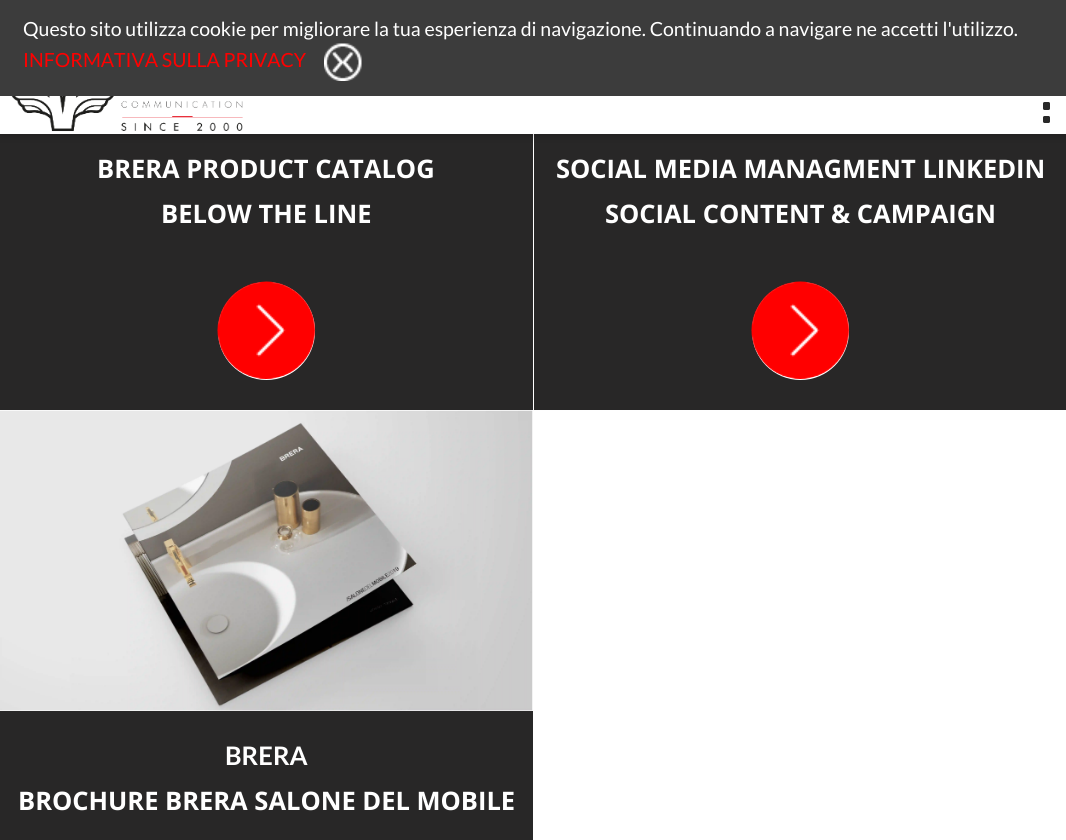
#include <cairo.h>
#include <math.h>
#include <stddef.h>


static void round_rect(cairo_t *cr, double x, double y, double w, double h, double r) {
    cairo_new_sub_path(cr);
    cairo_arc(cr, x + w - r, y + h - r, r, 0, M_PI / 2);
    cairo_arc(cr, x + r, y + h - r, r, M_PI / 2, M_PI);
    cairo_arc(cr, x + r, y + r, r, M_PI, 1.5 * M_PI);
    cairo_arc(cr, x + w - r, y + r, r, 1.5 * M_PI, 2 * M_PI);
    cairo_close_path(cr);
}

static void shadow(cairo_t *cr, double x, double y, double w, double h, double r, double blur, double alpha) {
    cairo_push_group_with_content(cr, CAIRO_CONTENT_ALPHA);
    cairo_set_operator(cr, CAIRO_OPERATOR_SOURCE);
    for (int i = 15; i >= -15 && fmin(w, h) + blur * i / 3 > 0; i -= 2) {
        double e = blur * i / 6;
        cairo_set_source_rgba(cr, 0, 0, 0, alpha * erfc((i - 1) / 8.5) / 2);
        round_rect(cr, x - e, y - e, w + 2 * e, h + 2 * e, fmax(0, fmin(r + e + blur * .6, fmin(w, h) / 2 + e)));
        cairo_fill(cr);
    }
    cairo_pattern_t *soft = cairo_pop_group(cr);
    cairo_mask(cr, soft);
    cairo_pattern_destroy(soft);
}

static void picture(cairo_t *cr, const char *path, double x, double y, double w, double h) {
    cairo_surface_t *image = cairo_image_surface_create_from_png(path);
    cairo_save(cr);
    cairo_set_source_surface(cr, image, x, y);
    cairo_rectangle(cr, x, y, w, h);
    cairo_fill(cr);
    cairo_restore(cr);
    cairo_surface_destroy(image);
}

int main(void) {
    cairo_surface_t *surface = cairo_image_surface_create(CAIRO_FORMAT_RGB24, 1066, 840);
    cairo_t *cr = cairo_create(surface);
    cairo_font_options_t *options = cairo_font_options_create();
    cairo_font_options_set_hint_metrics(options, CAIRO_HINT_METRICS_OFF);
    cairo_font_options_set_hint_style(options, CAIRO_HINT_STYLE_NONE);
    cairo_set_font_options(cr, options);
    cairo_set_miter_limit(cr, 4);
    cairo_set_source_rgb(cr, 1, 1, 1);
    cairo_paint(cr);
    cairo_set_source_rgb(cr, 0.157, 0.153, 0.153);
    cairo_rectangle(cr, 0, 134, 533, 276);
    cairo_fill(cr);
    cairo_rectangle(cr, 534, 134, 532, 276);
    cairo_fill(cr);
    cairo_set_source_rgb(cr, 0, 0, 0);
    shadow(cr, 0, 2, 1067, 133, 0, 5, 0.25);
    cairo_set_source_rgb(cr, 1, 1, 1);
    cairo_rectangle(cr, 0, 96, 1066, 38);
    cairo_fill(cr);
    picture(cr, "img1.png", 11, 96, 232, 36);
    cairo_set_source_rgb(cr, 0.157, 0.157, 0.157);
    round_rect(cr, 1043, 102, 7, 8, 1.5);
    cairo_fill(cr);
    round_rect(cr, 1043, 116, 7, 7, 1.5);
    cairo_fill(cr);
    cairo_set_source_rgb(cr, 0.235, 0.235, 0.235);
    cairo_rectangle(cr, 0, 0, 1066, 96);
    cairo_fill(cr);
    cairo_select_font_face(cr, "Lato", CAIRO_FONT_SLANT_NORMAL, CAIRO_FONT_WEIGHT_NORMAL);
    cairo_set_font_size(cr, 19.5);
    cairo_set_source_rgb(cr, 1, 1, 1);
    cairo_move_to(cr, 23, 36);
    cairo_show_text(cr, "Questo sito utilizza cookie per migliorare la tua esperienza di navigazione. Continuando a navigare ne accetti l'utilizzo.");
    cairo_set_source_rgb(cr, 1, 0, 0);
    cairo_move_to(cr, 23, 67);
    cairo_show_text(cr, "INFORMATIVA SULLA PRIVACY");
    picture(cr, "img2.png", 324, 43, 38, 38);
    cairo_select_font_face(cr, "Open Sans", CAIRO_FONT_SLANT_NORMAL, CAIRO_FONT_WEIGHT_BOLD);
    cairo_set_font_size(cr, 25.5);
    cairo_set_source_rgb(cr, 1, 1, 1);
    cairo_move_to(cr, 97, 178);
    cairo_show_text(cr, "BRERA PRODUCT CATALOG");
    cairo_move_to(cr, 161, 223);
    cairo_show_text(cr, "BELOW THE LINE");
    round_rect(cr, 218, 282, 97, 98, 48.5);
    cairo_fill(cr);
    picture(cr, "img3.png", 217, 281, 99, 98);
    cairo_move_to(cr, 556, 178);
    cairo_show_text(cr, "SOCIAL MEDIA MANAGMENT LINKEDIN");
    cairo_move_to(cr, 605, 223);
    cairo_show_text(cr, "SOCIAL CONTENT & CAMPAIGN");
    round_rect(cr, 752, 282, 97, 98, 48.5);
    cairo_fill(cr);
    picture(cr, "img4.png", 751, 281, 99, 98);
    picture(cr, "img5.png", 0, 410, 533, 301);
    cairo_set_source_rgb(cr, 0.157, 0.153, 0.153);
    cairo_rectangle(cr, 0, 711, 533, 129);
    cairo_fill(cr);
    cairo_select_font_face(cr, "Lato", CAIRO_FONT_SLANT_NORMAL, CAIRO_FONT_WEIGHT_BOLD);
    cairo_set_source_rgb(cr, 1, 1, 1);
    cairo_move_to(cr, 225, 765);
    cairo_show_text(cr, "BRERA");
    cairo_select_font_face(cr, "Open Sans", CAIRO_FONT_SLANT_NORMAL, CAIRO_FONT_WEIGHT_BOLD);
    cairo_move_to(cr, 18, 810);
    cairo_show_text(cr, "BROCHURE BRERA SALONE DEL MOBILE");
    cairo_surface_write_to_png(surface, "page.png");
    cairo_font_options_destroy(options);
    cairo_destroy(cr);
    cairo_surface_destroy(surface);
    return 0;
}
